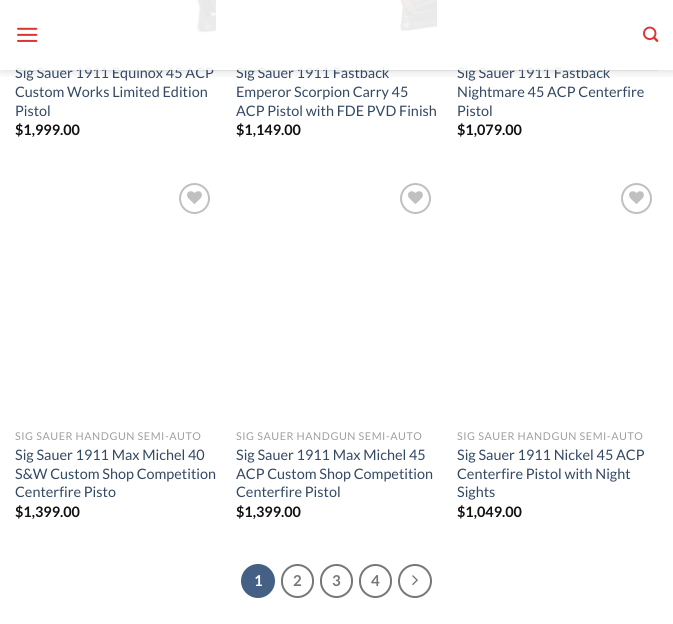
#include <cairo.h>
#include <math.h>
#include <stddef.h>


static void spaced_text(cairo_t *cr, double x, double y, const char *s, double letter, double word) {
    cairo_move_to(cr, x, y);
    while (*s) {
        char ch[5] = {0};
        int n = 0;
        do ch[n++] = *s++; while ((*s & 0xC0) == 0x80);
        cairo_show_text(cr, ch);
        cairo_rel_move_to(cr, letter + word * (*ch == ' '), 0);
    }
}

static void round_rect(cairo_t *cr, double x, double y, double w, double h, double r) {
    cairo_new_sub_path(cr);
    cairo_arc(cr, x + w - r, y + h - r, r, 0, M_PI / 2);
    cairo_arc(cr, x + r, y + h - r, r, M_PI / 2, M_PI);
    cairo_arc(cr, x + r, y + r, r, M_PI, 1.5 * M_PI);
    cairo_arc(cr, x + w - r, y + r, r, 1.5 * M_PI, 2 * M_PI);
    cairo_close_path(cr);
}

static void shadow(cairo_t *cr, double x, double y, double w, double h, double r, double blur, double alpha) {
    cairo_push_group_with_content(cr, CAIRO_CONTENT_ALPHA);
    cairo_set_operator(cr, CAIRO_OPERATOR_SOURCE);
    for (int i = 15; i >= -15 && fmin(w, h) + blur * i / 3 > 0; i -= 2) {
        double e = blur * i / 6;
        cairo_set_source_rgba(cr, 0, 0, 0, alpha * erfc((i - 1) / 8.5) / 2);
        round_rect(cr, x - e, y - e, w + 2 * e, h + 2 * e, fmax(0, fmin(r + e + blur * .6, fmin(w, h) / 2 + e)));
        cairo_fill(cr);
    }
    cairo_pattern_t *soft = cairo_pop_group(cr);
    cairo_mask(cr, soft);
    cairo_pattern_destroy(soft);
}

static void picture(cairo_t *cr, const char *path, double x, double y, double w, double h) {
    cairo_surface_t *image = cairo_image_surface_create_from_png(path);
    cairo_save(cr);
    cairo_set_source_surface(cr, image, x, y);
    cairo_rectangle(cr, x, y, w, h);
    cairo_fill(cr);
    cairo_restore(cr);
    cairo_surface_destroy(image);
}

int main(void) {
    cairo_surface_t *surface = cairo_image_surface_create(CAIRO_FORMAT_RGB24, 673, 624);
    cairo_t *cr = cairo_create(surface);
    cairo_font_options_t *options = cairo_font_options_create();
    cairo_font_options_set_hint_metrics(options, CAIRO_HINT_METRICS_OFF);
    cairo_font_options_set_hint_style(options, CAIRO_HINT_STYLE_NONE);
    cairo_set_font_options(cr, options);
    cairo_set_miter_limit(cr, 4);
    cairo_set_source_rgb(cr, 1, 1, 1);
    cairo_paint(cr);
    picture(cr, "img3.png", 195, 0, 21, 36);
    picture(cr, "img4.png", 393, 0, 44, 32);
    picture(cr, "img5.png", 607, 1, 12, 3);
    cairo_save(cr);
    cairo_rectangle(cr, 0, 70, 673, 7);
    cairo_clip(cr);
    cairo_set_source_rgb(cr, 0, 0, 0);
    shadow(cr, 1, 1, 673, 70, 0, 5, 0.15);
    cairo_restore(cr);
    cairo_select_font_face(cr, "Lato", CAIRO_FONT_SLANT_NORMAL, CAIRO_FONT_WEIGHT_NORMAL);
    cairo_set_font_size(cr, 14.4);
    cairo_set_source_rgb(cr, 0.2, 0.282, 0.384);
    cairo_move_to(cr, 15, 78);
    cairo_show_text(cr, "Sig Sauer 1911 Equinox 45 ACP");
    cairo_move_to(cr, 236, 78);
    cairo_show_text(cr, "Sig Sauer 1911 Fastback");
    cairo_move_to(cr, 457, 78);
    cairo_show_text(cr, "Sig Sauer 1911 Fastback");
    cairo_set_source_rgba(cr, 1, 1, 1, 0.9);
    cairo_rectangle(cr, 15, 0, 604, 70);
    cairo_fill(cr);
    picture(cr, "img1.png", 17, 27, 21, 15);
    picture(cr, "img2.png", 643, 26, 16, 16);
    cairo_set_source_rgba(cr, 0.467, 0.467, 0.467, 0.1);
    cairo_rectangle(cr, 15, 70, 643, 1);
    cairo_fill(cr);
    cairo_set_source_rgb(cr, 0.2, 0.282, 0.384);
    cairo_move_to(cr, 15, 97);
    cairo_show_text(cr, "Custom Works Limited Edition");
    cairo_move_to(cr, 15, 116);
    cairo_show_text(cr, "Pistol");
    cairo_select_font_face(cr, "Lato", CAIRO_FONT_SLANT_NORMAL, CAIRO_FONT_WEIGHT_BOLD);
    cairo_set_source_rgb(cr, 0.067, 0.067, 0.067);
    cairo_move_to(cr, 15, 135);
    cairo_show_text(cr, "$1,999.00");
    cairo_select_font_face(cr, "Lato", CAIRO_FONT_SLANT_NORMAL, CAIRO_FONT_WEIGHT_NORMAL);
    cairo_set_source_rgb(cr, 0.2, 0.282, 0.384);
    cairo_move_to(cr, 236, 97);
    cairo_show_text(cr, "Emperor Scorpion Carry 45");
    cairo_move_to(cr, 236, 116);
    cairo_show_text(cr, "ACP Pistol with FDE PVD Finish");
    cairo_select_font_face(cr, "Lato", CAIRO_FONT_SLANT_NORMAL, CAIRO_FONT_WEIGHT_BOLD);
    cairo_set_source_rgb(cr, 0.067, 0.067, 0.067);
    cairo_move_to(cr, 236, 135);
    cairo_show_text(cr, "$1,149.00");
    cairo_select_font_face(cr, "Lato", CAIRO_FONT_SLANT_NORMAL, CAIRO_FONT_WEIGHT_NORMAL);
    cairo_set_source_rgb(cr, 0.2, 0.282, 0.384);
    cairo_move_to(cr, 457, 97);
    cairo_show_text(cr, "Nightmare 45 ACP Centerfire");
    cairo_move_to(cr, 457, 116);
    cairo_show_text(cr, "Pistol");
    cairo_select_font_face(cr, "Lato", CAIRO_FONT_SLANT_NORMAL, CAIRO_FONT_WEIGHT_BOLD);
    cairo_set_source_rgb(cr, 0.067, 0.067, 0.067);
    cairo_move_to(cr, 457, 135);
    cairo_show_text(cr, "$1,079.00");
    cairo_new_path(cr);
    cairo_arc(cr, 194.5, 198.5, 14.5, 0, 2 * M_PI);
    cairo_set_source_rgb(cr, 0.753, 0.753, 0.753);
    cairo_stroke(cr);
    picture(cr, "img6.png", 187, 191, 15, 13);
    cairo_select_font_face(cr, "Lato", CAIRO_FONT_SLANT_NORMAL, CAIRO_FONT_WEIGHT_NORMAL);
    cairo_set_font_size(cr, 10.75);
    cairo_set_source_rgb(cr, 0.627, 0.627, 0.627);
    spaced_text(cr, 15, 440, "SIG SAUER HANDGUN SEMI-AUTO", 0.55, 0);
    cairo_set_font_size(cr, 14.4);
    cairo_set_source_rgb(cr, 0.2, 0.282, 0.384);
    cairo_move_to(cr, 15, 460);
    cairo_show_text(cr, "Sig Sauer 1911 Max Michel 40");
    cairo_move_to(cr, 15, 479);
    cairo_show_text(cr, "S&W Custom Shop Competition");
    cairo_move_to(cr, 15, 497);
    cairo_show_text(cr, "Centerfire Pisto");
    cairo_select_font_face(cr, "Lato", CAIRO_FONT_SLANT_NORMAL, CAIRO_FONT_WEIGHT_BOLD);
    cairo_set_source_rgb(cr, 0.067, 0.067, 0.067);
    cairo_move_to(cr, 15, 517);
    cairo_show_text(cr, "$1,399.00");
    cairo_new_path(cr);
    cairo_arc(cr, 415.5, 198.5, 14.5, 0, 2 * M_PI);
    cairo_set_source_rgb(cr, 0.753, 0.753, 0.753);
    cairo_stroke(cr);
    picture(cr, "img6.png", 408, 191, 15, 13);
    cairo_select_font_face(cr, "Lato", CAIRO_FONT_SLANT_NORMAL, CAIRO_FONT_WEIGHT_NORMAL);
    cairo_set_font_size(cr, 10.75);
    cairo_set_source_rgb(cr, 0.627, 0.627, 0.627);
    spaced_text(cr, 236, 440, "SIG SAUER HANDGUN SEMI-AUTO", 0.55, 0);
    cairo_set_font_size(cr, 14.4);
    cairo_set_source_rgb(cr, 0.2, 0.282, 0.384);
    cairo_move_to(cr, 236, 460);
    cairo_show_text(cr, "Sig Sauer 1911 Max Michel 45");
    cairo_move_to(cr, 236, 479);
    cairo_show_text(cr, "ACP Custom Shop Competition");
    cairo_move_to(cr, 236, 497);
    cairo_show_text(cr, "Centerfire Pistol");
    cairo_select_font_face(cr, "Lato", CAIRO_FONT_SLANT_NORMAL, CAIRO_FONT_WEIGHT_BOLD);
    cairo_set_source_rgb(cr, 0.067, 0.067, 0.067);
    cairo_move_to(cr, 236, 517);
    cairo_show_text(cr, "$1,399.00");
    cairo_new_path(cr);
    cairo_arc(cr, 636.5, 198.5, 14.5, 0, 2 * M_PI);
    cairo_set_source_rgb(cr, 0.753, 0.753, 0.753);
    cairo_stroke(cr);
    picture(cr, "img6.png", 629, 191, 15, 13);
    cairo_select_font_face(cr, "Lato", CAIRO_FONT_SLANT_NORMAL, CAIRO_FONT_WEIGHT_NORMAL);
    cairo_set_font_size(cr, 10.75);
    cairo_set_source_rgb(cr, 0.627, 0.627, 0.627);
    spaced_text(cr, 457, 440, "SIG SAUER HANDGUN SEMI-AUTO", 0.55, 0);
    cairo_set_font_size(cr, 14.4);
    cairo_set_source_rgb(cr, 0.2, 0.282, 0.384);
    cairo_move_to(cr, 457, 460);
    cairo_show_text(cr, "Sig Sauer 1911 Nickel 45 ACP");
    cairo_move_to(cr, 457, 479);
    cairo_show_text(cr, "Centerfire Pistol with Night");
    cairo_move_to(cr, 457, 497);
    cairo_show_text(cr, "Sights");
    cairo_select_font_face(cr, "Lato", CAIRO_FONT_SLANT_NORMAL, CAIRO_FONT_WEIGHT_BOLD);
    cairo_set_source_rgb(cr, 0.067, 0.067, 0.067);
    cairo_move_to(cr, 457, 517);
    cairo_show_text(cr, "$1,049.00");
    cairo_set_source_rgb(cr, 0.267, 0.376, 0.518);
    cairo_new_path(cr);
    cairo_arc(cr, 258, 581, 16, 0, 2 * M_PI);
    cairo_fill_preserve(cr);
    cairo_stroke(cr);
    cairo_set_font_size(cr, 15);
    cairo_set_source_rgb(cr, 1, 1, 1);
    cairo_move_to(cr, 254, 586);
    cairo_show_text(cr, "1");
    round_rect(cr, 282, 565, 31, 32, 15.5);
    cairo_set_source_rgb(cr, 0.467, 0.467, 0.467);
    cairo_stroke(cr);
    cairo_move_to(cr, 293, 586);
    cairo_show_text(cr, "2");
    round_rect(cr, 321, 565, 31, 32, 15.5);
    cairo_stroke(cr);
    cairo_move_to(cr, 332, 586);
    cairo_show_text(cr, "3");
    round_rect(cr, 360, 565, 31, 32, 15.5);
    cairo_stroke(cr);
    cairo_move_to(cr, 371, 586);
    cairo_show_text(cr, "4");
    cairo_new_path(cr);
    cairo_arc(cr, 415, 581, 16, 0, 2 * M_PI);
    cairo_stroke(cr);
    picture(cr, "img7.png", 412, 575, 6, 10);
    cairo_surface_write_to_png(surface, "page.png");
    cairo_font_options_destroy(options);
    cairo_destroy(cr);
    cairo_surface_destroy(surface);
    return 0;
}
